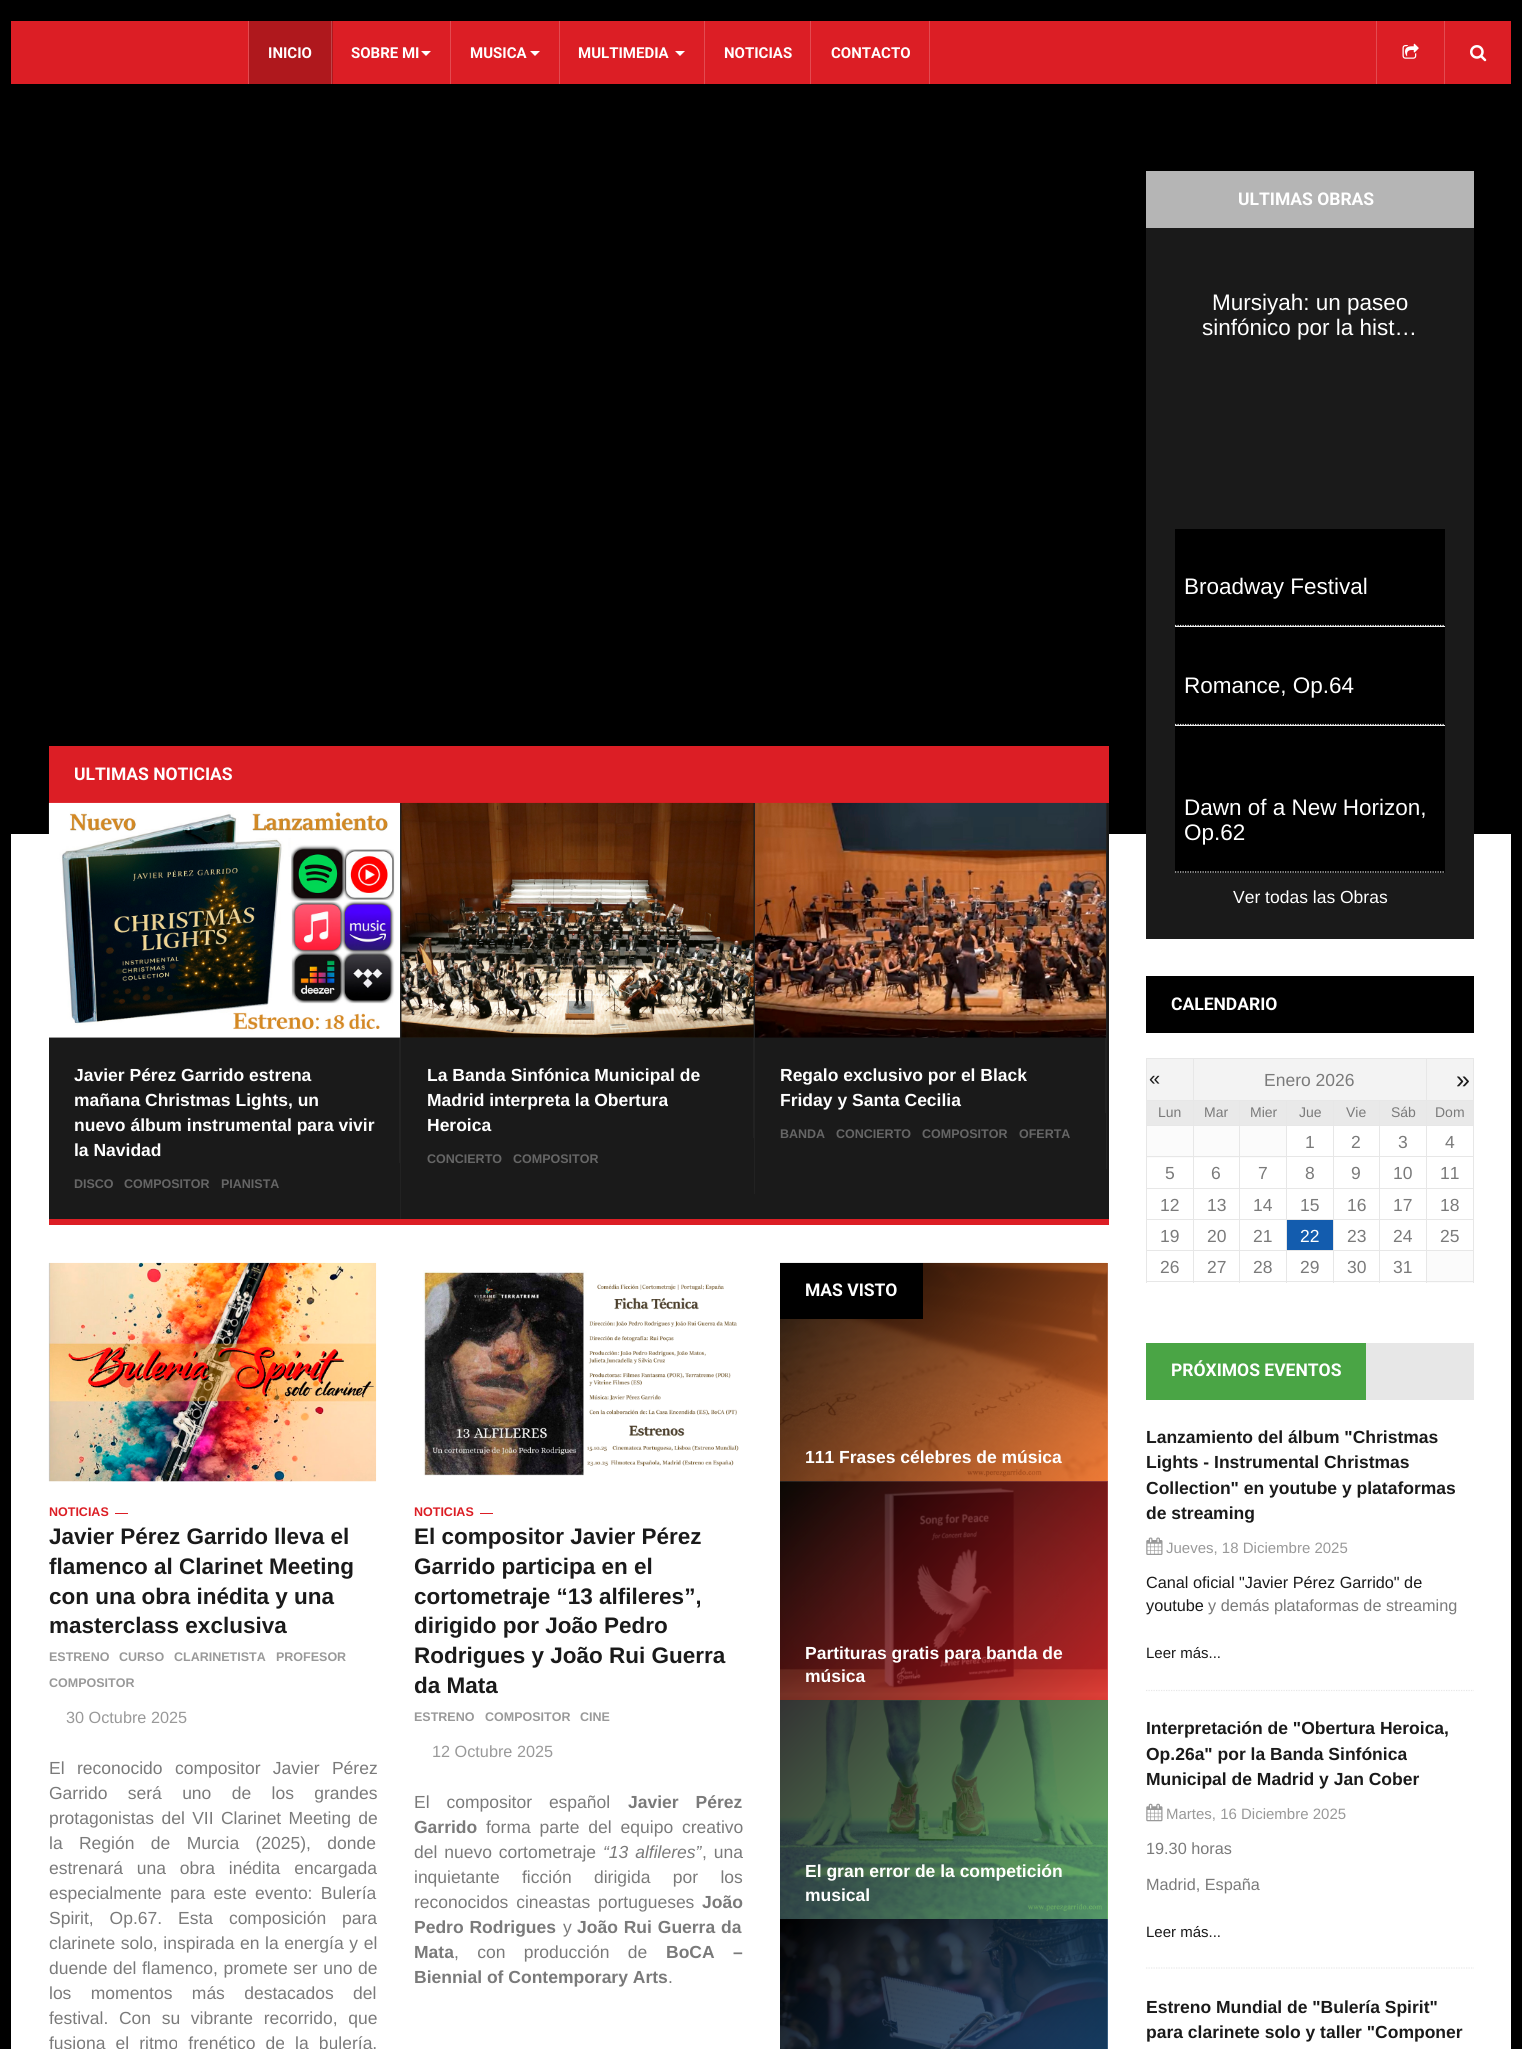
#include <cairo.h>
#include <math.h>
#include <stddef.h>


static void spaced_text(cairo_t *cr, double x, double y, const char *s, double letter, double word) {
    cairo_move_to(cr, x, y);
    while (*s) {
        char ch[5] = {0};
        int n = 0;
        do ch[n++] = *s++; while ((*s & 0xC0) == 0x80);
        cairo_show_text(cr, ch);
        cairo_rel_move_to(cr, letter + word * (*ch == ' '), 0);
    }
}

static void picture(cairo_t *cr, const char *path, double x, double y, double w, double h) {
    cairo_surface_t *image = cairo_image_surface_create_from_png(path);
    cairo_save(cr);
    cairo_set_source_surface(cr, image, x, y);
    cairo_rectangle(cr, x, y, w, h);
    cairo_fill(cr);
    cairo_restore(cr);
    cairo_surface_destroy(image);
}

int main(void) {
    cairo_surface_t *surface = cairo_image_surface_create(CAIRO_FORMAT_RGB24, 1522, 2049);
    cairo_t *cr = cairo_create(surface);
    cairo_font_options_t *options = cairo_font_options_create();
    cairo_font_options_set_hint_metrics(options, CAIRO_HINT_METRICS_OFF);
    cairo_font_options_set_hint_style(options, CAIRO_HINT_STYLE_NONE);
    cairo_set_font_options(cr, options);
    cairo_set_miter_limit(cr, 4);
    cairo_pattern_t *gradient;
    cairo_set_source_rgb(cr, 0, 0, 0);
    cairo_paint(cr);
    cairo_set_source_rgb(cr, 0.863, 0.118, 0.145);
    cairo_rectangle(cr, 11, 21, 1500, 63);
    cairo_fill(cr);
    cairo_set_source_rgb(cr, 0.89, 0.294, 0.318);
    cairo_rectangle(cr, 248, 21, 1, 63);
    cairo_fill(cr);
    cairo_set_source_rgb(cr, 0.686, 0.094, 0.114);
    cairo_rectangle(cr, 249, 21, 84, 63);
    cairo_fill(cr);
    cairo_set_source_rgb(cr, 0.749, 0.275, 0.29);
    cairo_rectangle(cr, 331, 21, 1, 63);
    cairo_fill(cr);
    cairo_select_font_face(cr, "Roboto", CAIRO_FONT_SLANT_NORMAL, CAIRO_FONT_WEIGHT_BOLD);
    cairo_set_font_size(cr, 15);
    cairo_set_source_rgb(cr, 1, 1, 1);
    cairo_move_to(cr, 268, 58);
    cairo_show_text(cr, "INICIO");
    cairo_set_source_rgb(cr, 0.89, 0.294, 0.318);
    cairo_rectangle(cr, 450, 21, 1, 63);
    cairo_fill(cr);
    cairo_set_source_rgb(cr, 1, 1, 1);
    cairo_move_to(cr, 351, 58);
    cairo_show_text(cr, "SOBRE MI");
    cairo_new_path(cr);
    cairo_move_to(cr, 421, 51);
    cairo_line_to(cr, 431, 51);
    cairo_line_to(cr, 426, 56);
    cairo_close_path(cr);
    cairo_fill(cr);
    cairo_set_source_rgb(cr, 0.89, 0.294, 0.318);
    cairo_rectangle(cr, 559, 21, 1, 63);
    cairo_fill(cr);
    cairo_set_source_rgb(cr, 1, 1, 1);
    cairo_move_to(cr, 470, 58);
    cairo_show_text(cr, "MUSICA");
    cairo_new_path(cr);
    cairo_move_to(cr, 530, 51);
    cairo_line_to(cr, 540, 51);
    cairo_line_to(cr, 535, 56);
    cairo_close_path(cr);
    cairo_fill(cr);
    cairo_set_source_rgb(cr, 0.89, 0.294, 0.318);
    cairo_rectangle(cr, 704, 21, 1, 63);
    cairo_fill(cr);
    cairo_set_source_rgb(cr, 1, 1, 1);
    cairo_move_to(cr, 578, 58);
    cairo_show_text(cr, "MULTIMEDIA");
    cairo_new_path(cr);
    cairo_move_to(cr, 675, 51);
    cairo_line_to(cr, 685, 51);
    cairo_line_to(cr, 680, 56);
    cairo_close_path(cr);
    cairo_fill(cr);
    cairo_set_source_rgb(cr, 0.89, 0.294, 0.318);
    cairo_rectangle(cr, 810, 21, 1, 63);
    cairo_fill(cr);
    cairo_set_source_rgb(cr, 1, 1, 1);
    cairo_move_to(cr, 724, 58);
    cairo_show_text(cr, "NOTICIAS");
    cairo_set_source_rgb(cr, 0.89, 0.294, 0.318);
    cairo_rectangle(cr, 929, 21, 1, 63);
    cairo_fill(cr);
    cairo_set_source_rgb(cr, 1, 1, 1);
    cairo_move_to(cr, 831, 58);
    cairo_show_text(cr, "CONTACTO");
    cairo_set_source_rgb(cr, 0.89, 0.294, 0.318);
    cairo_rectangle(cr, 1376, 21, 1, 63);
    cairo_fill(cr);
    picture(cr, "img1.png", 1402, 43, 17, 16);
    cairo_rectangle(cr, 1444, 21, 1, 63);
    cairo_fill(cr);
    picture(cr, "img2.png", 1470, 45, 17, 17);
    cairo_set_source_rgb(cr, 1, 1, 1);
    cairo_rectangle(cr, 11, 834, 1500, 1215);
    cairo_fill(cr);
    cairo_set_source_rgb(cr, 0.102, 0.102, 0.102);
    cairo_rectangle(cr, 49, 803, 1060, 416);
    cairo_fill(cr);
    cairo_set_source_rgb(cr, 0.863, 0.118, 0.145);
    cairo_rectangle(cr, 49, 1219, 1060, 6);
    cairo_fill(cr);
    cairo_rectangle(cr, 49, 746, 1060, 57);
    cairo_fill(cr);
    cairo_set_font_size(cr, 17.5);
    cairo_set_source_rgb(cr, 1, 1, 1);
    cairo_move_to(cr, 74, 780);
    cairo_show_text(cr, "ULTIMAS NOTICIAS");
    cairo_set_source_rgb(cr, 0.133, 0.133, 0.133);
    cairo_rectangle(cr, 400, 803, 1, 416);
    cairo_fill(cr);
    picture(cr, "img3.png", 48, 802, 352, 236);
    cairo_rectangle(cr, 399, 1038, 1, 125);
    cairo_fill(cr);
    cairo_select_font_face(cr, "Liberation Sans", CAIRO_FONT_SLANT_NORMAL, CAIRO_FONT_WEIGHT_BOLD);
    cairo_set_source_rgb(cr, 1, 1, 1);
    cairo_move_to(cr, 74, 1081);
    cairo_show_text(cr, "Javier Pérez Garrido estrena");
    cairo_move_to(cr, 74, 1106);
    cairo_show_text(cr, "mañana Christmas Lights, un");
    cairo_move_to(cr, 74, 1131);
    cairo_show_text(cr, "nuevo álbum instrumental para vivir");
    cairo_move_to(cr, 74, 1156);
    cairo_show_text(cr, "la Navidad");
    cairo_set_font_size(cr, 12.5);
    cairo_set_source_rgb(cr, 0.4, 0.4, 0.4);
    cairo_move_to(cr, 74, 1188);
    cairo_show_text(cr, "DISCO");
    cairo_move_to(cr, 124, 1188);
    cairo_show_text(cr, "COMPOSITOR");
    cairo_move_to(cr, 221, 1188);
    cairo_show_text(cr, "PIANISTA");
    cairo_set_source_rgb(cr, 0.133, 0.133, 0.133);
    cairo_rectangle(cr, 754, 803, 1, 391);
    cairo_fill(cr);
    picture(cr, "img4.png", 401, 802, 353, 236);
    cairo_rectangle(cr, 753, 1038, 1, 100);
    cairo_fill(cr);
    cairo_set_font_size(cr, 17.5);
    cairo_set_source_rgb(cr, 1, 1, 1);
    cairo_move_to(cr, 427, 1081);
    cairo_show_text(cr, "La Banda Sinfónica Municipal de");
    cairo_move_to(cr, 427, 1106);
    cairo_show_text(cr, "Madrid interpreta la Obertura");
    cairo_move_to(cr, 427, 1131);
    cairo_show_text(cr, "Heroica");
    cairo_set_font_size(cr, 12.5);
    cairo_set_source_rgb(cr, 0.4, 0.4, 0.4);
    cairo_move_to(cr, 427, 1163);
    cairo_show_text(cr, "CONCIERTO");
    cairo_move_to(cr, 513, 1163);
    cairo_show_text(cr, "COMPOSITOR");
    cairo_set_source_rgb(cr, 0.133, 0.133, 0.133);
    cairo_rectangle(cr, 1106, 803, 1, 366);
    cairo_fill(cr);
    picture(cr, "img5.png", 755, 802, 352, 236);
    cairo_rectangle(cr, 1105, 1038, 1, 75);
    cairo_fill(cr);
    cairo_set_font_size(cr, 17.5);
    cairo_set_source_rgb(cr, 1, 1, 1);
    cairo_move_to(cr, 780, 1081);
    cairo_show_text(cr, "Regalo exclusivo por el Black");
    cairo_move_to(cr, 780, 1106);
    cairo_show_text(cr, "Friday y Santa Cecilia");
    cairo_set_font_size(cr, 12.5);
    cairo_set_source_rgb(cr, 0.4, 0.4, 0.4);
    cairo_move_to(cr, 780, 1138);
    cairo_show_text(cr, "BANDA");
    cairo_move_to(cr, 836, 1138);
    cairo_show_text(cr, "CONCIERTO");
    cairo_move_to(cr, 922, 1138);
    cairo_show_text(cr, "COMPOSITOR");
    cairo_move_to(cr, 1019, 1138);
    cairo_show_text(cr, "OFERTA");
    picture(cr, "img6.png", 48, 1262, 329, 220);
    cairo_set_source_rgb(cr, 0.863, 0.118, 0.145);
    cairo_move_to(cr, 49, 1516);
    cairo_show_text(cr, "NOTICIAS");
    cairo_rectangle(cr, 115, 1513, 13, 1);
    cairo_fill(cr);
    cairo_set_font_size(cr, 22.5);
    cairo_set_source_rgb(cr, 0.102, 0.102, 0.102);
    cairo_move_to(cr, 49, 1544);
    cairo_show_text(cr, "Javier Pérez Garrido lleva el");
    cairo_move_to(cr, 49, 1574);
    cairo_show_text(cr, "flamenco al Clarinet Meeting");
    cairo_move_to(cr, 49, 1604);
    cairo_show_text(cr, "con una obra inédita y una");
    cairo_move_to(cr, 49, 1633);
    cairo_show_text(cr, "masterclass exclusiva");
    cairo_set_font_size(cr, 12.5);
    cairo_set_source_rgb(cr, 0.6, 0.6, 0.6);
    cairo_move_to(cr, 49, 1661);
    cairo_show_text(cr, "ESTRENO");
    cairo_move_to(cr, 119, 1661);
    cairo_show_text(cr, "CURSO");
    cairo_move_to(cr, 174, 1661);
    cairo_show_text(cr, "CLARINETISTA");
    cairo_move_to(cr, 276, 1661);
    cairo_show_text(cr, "PROFESOR");
    cairo_move_to(cr, 49, 1687);
    cairo_show_text(cr, "COMPOSITOR");
    cairo_select_font_face(cr, "Liberation Sans", CAIRO_FONT_SLANT_NORMAL, CAIRO_FONT_WEIGHT_NORMAL);
    cairo_set_font_size(cr, 16.25);
    cairo_move_to(cr, 66, 1723);
    cairo_show_text(cr, "30 Octubre 2025");
    cairo_set_font_size(cr, 17.5);
    cairo_set_source_rgb(cr, 0.478, 0.478, 0.478);
    spaced_text(cr, 49, 1774, "El reconocido compositor Javier Pérez", 0, 7.5);
    spaced_text(cr, 49, 1799, "Garrido será uno de los grandes", 0, 15.5);
    spaced_text(cr, 49, 1824, "protagonistas del VII Clarinet Meeting de", 0, 2.5);
    spaced_text(cr, 49, 1849, "la Región de Murcia (2025), donde", 0, 11.5);
    spaced_text(cr, 49, 1874, "estrenará una obra inédita encargada", 0, 9);
    spaced_text(cr, 49, 1899, "especialmente para este evento: Bulería", 0, 3.5);
    spaced_text(cr, 49, 1924, "Spirit, Op.67. Esta composición para", 0, 11);
    spaced_text(cr, 49, 1949, "clarinete solo, inspirada en la energía y el", 0, 0.75);
    spaced_text(cr, 49, 1974, "duende del flamenco, promete ser uno de", 0, 0.75);
    spaced_text(cr, 49, 1999, "los momentos más destacados del", 0, 14.5);
    spaced_text(cr, 49, 2024, "festival. Con su vibrante recorrido, que", 0, 5.75);
    spaced_text(cr, 49, 2049, "fusiona el ritmo frenético de la bulería,", 0, 5.25);
    picture(cr, "img7.png", 423, 1270, 316, 206);
    cairo_select_font_face(cr, "Liberation Sans", CAIRO_FONT_SLANT_NORMAL, CAIRO_FONT_WEIGHT_BOLD);
    cairo_set_font_size(cr, 12.5);
    cairo_set_source_rgb(cr, 0.863, 0.118, 0.145);
    cairo_move_to(cr, 414, 1516);
    cairo_show_text(cr, "NOTICIAS");
    cairo_rectangle(cr, 480, 1513, 13, 1);
    cairo_fill(cr);
    cairo_set_font_size(cr, 22.5);
    cairo_set_source_rgb(cr, 0.102, 0.102, 0.102);
    cairo_move_to(cr, 414, 1544);
    cairo_show_text(cr, "El compositor Javier Pérez");
    cairo_move_to(cr, 414, 1574);
    cairo_show_text(cr, "Garrido participa en el");
    cairo_move_to(cr, 414, 1604);
    cairo_show_text(cr, "cortometraje “13 alfileres”,");
    cairo_move_to(cr, 414, 1633);
    cairo_show_text(cr, "dirigido por João Pedro");
    cairo_move_to(cr, 414, 1663);
    cairo_show_text(cr, "Rodrigues y João Rui Guerra");
    cairo_move_to(cr, 414, 1693);
    cairo_show_text(cr, "da Mata");
    cairo_set_font_size(cr, 12.5);
    cairo_set_source_rgb(cr, 0.6, 0.6, 0.6);
    cairo_move_to(cr, 414, 1721);
    cairo_show_text(cr, "ESTRENO");
    cairo_move_to(cr, 485, 1721);
    cairo_show_text(cr, "COMPOSITOR");
    cairo_move_to(cr, 580, 1721);
    cairo_show_text(cr, "CINE");
    cairo_select_font_face(cr, "Liberation Sans", CAIRO_FONT_SLANT_NORMAL, CAIRO_FONT_WEIGHT_NORMAL);
    cairo_set_font_size(cr, 16.25);
    cairo_move_to(cr, 432, 1757);
    cairo_show_text(cr, "12 Octubre 2025");
    cairo_set_font_size(cr, 17.5);
    cairo_set_source_rgb(cr, 0.478, 0.478, 0.478);
    spaced_text(cr, 414, 1808, "El compositor español", 0, 12);
    cairo_select_font_face(cr, "Liberation Sans", CAIRO_FONT_SLANT_NORMAL, CAIRO_FONT_WEIGHT_BOLD);
    spaced_text(cr, 628, 1808, "Javier Pérez", 0, 12);
    cairo_move_to(cr, 414, 1833);
    cairo_show_text(cr, "Garrido");
    cairo_select_font_face(cr, "Liberation Sans", CAIRO_FONT_SLANT_NORMAL, CAIRO_FONT_WEIGHT_NORMAL);
    spaced_text(cr, 486, 1833, "forma parte del equipo creativo", 0, 4);
    spaced_text(cr, 414, 1858, "del nuevo cortometraje", 0, 2);
    cairo_select_font_face(cr, "Liberation Sans", CAIRO_FONT_SLANT_ITALIC, CAIRO_FONT_WEIGHT_NORMAL);
    spaced_text(cr, 603, 1858, "“13 alfileres”", 0, 2);
    cairo_select_font_face(cr, "Liberation Sans", CAIRO_FONT_SLANT_NORMAL, CAIRO_FONT_WEIGHT_NORMAL);
    spaced_text(cr, 702, 1858, ", una", 0, 2);
    spaced_text(cr, 414, 1883, "inquietante ficción dirigida por los", 0, 17.5);
    spaced_text(cr, 414, 1908, "reconocidos cineastas portugueses", 0, 3);
    cairo_select_font_face(cr, "Liberation Sans", CAIRO_FONT_SLANT_NORMAL, CAIRO_FONT_WEIGHT_BOLD);
    cairo_move_to(cr, 702, 1908);
    cairo_show_text(cr, "João");
    spaced_text(cr, 414, 1933, "Pedro Rodrigues", 0, 1);
    cairo_select_font_face(cr, "Liberation Sans", CAIRO_FONT_SLANT_NORMAL, CAIRO_FONT_WEIGHT_NORMAL);
    cairo_move_to(cr, 563, 1933);
    cairo_show_text(cr, "y");
    cairo_select_font_face(cr, "Liberation Sans", CAIRO_FONT_SLANT_NORMAL, CAIRO_FONT_WEIGHT_BOLD);
    spaced_text(cr, 577, 1933, "João Rui Guerra da", 0, 1);
    cairo_move_to(cr, 414, 1958);
    cairo_show_text(cr, "Mata");
    cairo_select_font_face(cr, "Liberation Sans", CAIRO_FONT_SLANT_NORMAL, CAIRO_FONT_WEIGHT_NORMAL);
    spaced_text(cr, 454, 1958, ", con producción de", 0, 13.5);
    cairo_select_font_face(cr, "Liberation Sans", CAIRO_FONT_SLANT_NORMAL, CAIRO_FONT_WEIGHT_BOLD);
    spaced_text(cr, 666, 1958, "BoCA –", 0, 13.5);
    cairo_move_to(cr, 414, 1983);
    cairo_show_text(cr, "Biennial of Contemporary Arts");
    cairo_select_font_face(cr, "Liberation Sans", CAIRO_FONT_SLANT_NORMAL, CAIRO_FONT_WEIGHT_NORMAL);
    cairo_move_to(cr, 668, 1983);
    cairo_show_text(cr, ".");
    picture(cr, "img8.png", 780, 1262, 328, 220);
    gradient = cairo_pattern_create_linear(807, 1235, 1080, 1508);
    cairo_pattern_add_color_stop_rgba(gradient, 0, 0, 0, 0, 0.8);
    cairo_pattern_add_color_stop_rgba(gradient, 1, 0.98, 0.451, 0.165, 0.8);
    cairo_set_source(cr, gradient);
    cairo_pattern_destroy(gradient);
    cairo_rectangle(cr, 780, 1263, 328, 218);
    cairo_fill(cr);
    cairo_set_source_rgb(cr, 0, 0, 0);
    cairo_rectangle(cr, 780, 1263, 143, 56);
    cairo_fill(cr);
    cairo_select_font_face(cr, "Roboto", CAIRO_FONT_SLANT_NORMAL, CAIRO_FONT_WEIGHT_BOLD);
    cairo_set_source_rgb(cr, 1, 1, 1);
    cairo_move_to(cr, 805, 1296);
    cairo_show_text(cr, "MAS VISTO");
    cairo_select_font_face(cr, "Liberation Sans", CAIRO_FONT_SLANT_NORMAL, CAIRO_FONT_WEIGHT_BOLD);
    cairo_move_to(cr, 805, 1463);
    cairo_show_text(cr, "111 Frases célebres de música");
    picture(cr, "img9.png", 780, 1481, 328, 220);
    gradient = cairo_pattern_create_linear(807, 1454, 1080, 1727);
    cairo_pattern_add_color_stop_rgba(gradient, 0, 0, 0, 0, 0.8);
    cairo_pattern_add_color_stop_rgba(gradient, 1, 0.863, 0.118, 0.145, 0.8);
    cairo_set_source(cr, gradient);
    cairo_pattern_destroy(gradient);
    cairo_rectangle(cr, 780, 1481, 328, 219);
    cairo_fill(cr);
    cairo_set_source_rgb(cr, 1, 1, 1);
    cairo_move_to(cr, 805, 1659);
    cairo_show_text(cr, "Partituras gratis para banda de");
    cairo_move_to(cr, 805, 1682);
    cairo_show_text(cr, "música");
    picture(cr, "img10.png", 780, 1700, 328, 219);
    gradient = cairo_pattern_create_linear(807, 1673, 1080, 1946);
    cairo_pattern_add_color_stop_rgba(gradient, 0, 0, 0, 0, 0.8);
    cairo_pattern_add_color_stop_rgba(gradient, 1, 0.29, 0.647, 0.271, 0.8);
    cairo_set_source(cr, gradient);
    cairo_pattern_destroy(gradient);
    cairo_rectangle(cr, 780, 1700, 328, 219);
    cairo_fill(cr);
    cairo_set_source_rgb(cr, 1, 1, 1);
    cairo_move_to(cr, 805, 1877);
    cairo_show_text(cr, "El gran error de la competición");
    cairo_move_to(cr, 805, 1901);
    cairo_show_text(cr, "musical");
    picture(cr, "img11.png", 780, 1919, 328, 130);
    gradient = cairo_pattern_create_linear(807, 1892, 1080, 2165);
    cairo_pattern_add_color_stop_rgba(gradient, 0, 0, 0, 0, 0.8);
    cairo_pattern_add_color_stop_rgba(gradient, 1, 0.114, 0.341, 0.541, 0.8);
    cairo_set_source(cr, gradient);
    cairo_pattern_destroy(gradient);
    cairo_rectangle(cr, 780, 1919, 328, 130);
    cairo_fill(cr);
    cairo_set_source_rgb(cr, 0.102, 0.102, 0.102);
    cairo_rectangle(cr, 1146, 228, 328, 711);
    cairo_fill(cr);
    cairo_set_source_rgb(cr, 0.71, 0.71, 0.71);
    cairo_rectangle(cr, 1146, 171, 328, 57);
    cairo_fill(cr);
    cairo_select_font_face(cr, "Roboto", CAIRO_FONT_SLANT_NORMAL, CAIRO_FONT_WEIGHT_BOLD);
    cairo_set_source_rgb(cr, 1, 1, 1);
    cairo_move_to(cr, 1238, 205);
    cairo_show_text(cr, "ULTIMAS OBRAS");
    cairo_select_font_face(cr, "Liberation Sans", CAIRO_FONT_SLANT_NORMAL, CAIRO_FONT_WEIGHT_NORMAL);
    cairo_set_font_size(cr, 22.5);
    cairo_move_to(cr, 1212, 310);
    cairo_show_text(cr, "Mursiyah: un paseo");
    cairo_move_to(cr, 1202, 335);
    cairo_show_text(cr, "sinfónico por la hist…");
    cairo_set_source_rgb(cr, 0, 0, 0);
    cairo_rectangle(cr, 1175, 529, 270, 97);
    cairo_fill(cr);
    cairo_new_path(cr);
    cairo_move_to(cr, 1175, 625.5);
    cairo_line_to(cr, 1445, 625.5);
    cairo_set_source_rgb(cr, 0.906, 0.906, 0.906);
    cairo_set_line_width(cr, 1.2);
    cairo_set_dash(cr, (double[]){1.25, 1.25}, 2, 0);
    cairo_stroke(cr);
    cairo_set_source_rgb(cr, 1, 1, 1);
    cairo_move_to(cr, 1184, 594);
    cairo_show_text(cr, "Broadway Festival");
    cairo_set_source_rgb(cr, 0, 0, 0);
    cairo_rectangle(cr, 1175, 627, 270, 98);
    cairo_fill(cr);
    cairo_set_source_rgb(cr, 0.933, 0.933, 0.933);
    cairo_rectangle(cr, 1175, 626, 270, 1);
    cairo_fill(cr);
    cairo_new_path(cr);
    cairo_move_to(cr, 1175, 724.5);
    cairo_line_to(cr, 1445, 724.5);
    cairo_set_source_rgb(cr, 0.906, 0.906, 0.906);
    cairo_stroke(cr);
    cairo_set_source_rgb(cr, 1, 1, 1);
    cairo_move_to(cr, 1184, 693);
    cairo_show_text(cr, "Romance, Op.64");
    cairo_set_source_rgb(cr, 0, 0, 0);
    cairo_rectangle(cr, 1175, 726, 270, 147);
    cairo_fill(cr);
    cairo_set_source_rgb(cr, 0.933, 0.933, 0.933);
    cairo_rectangle(cr, 1175, 725, 270, 1);
    cairo_fill(cr);
    cairo_new_path(cr);
    cairo_move_to(cr, 1175, 872);
    cairo_line_to(cr, 1445, 872);
    cairo_set_source_rgb(cr, 0.906, 0.906, 0.906);
    cairo_stroke(cr);
    cairo_set_source_rgb(cr, 1, 1, 1);
    cairo_move_to(cr, 1184, 815);
    cairo_show_text(cr, "Dawn of a New Horizon,");
    cairo_move_to(cr, 1184, 840);
    cairo_show_text(cr, "Op.62");
    cairo_set_font_size(cr, 17.5);
    cairo_move_to(cr, 1233, 903);
    cairo_show_text(cr, "Ver todas las Obras");
    cairo_set_source_rgb(cr, 0, 0, 0);
    cairo_rectangle(cr, 1146, 976, 328, 57);
    cairo_fill(cr);
    cairo_select_font_face(cr, "Roboto", CAIRO_FONT_SLANT_NORMAL, CAIRO_FONT_WEIGHT_BOLD);
    cairo_set_source_rgb(cr, 1, 1, 1);
    cairo_move_to(cr, 1171, 1010);
    cairo_show_text(cr, "CALENDARIO");
    cairo_set_source_rgb(cr, 0.953, 0.953, 0.953);
    cairo_rectangle(cr, 1147, 1059, 46, 41);
    cairo_fill(cr);
    cairo_set_source_rgb(cr, 0.906, 0.906, 0.906);
    cairo_rectangle(cr, 1426, 1058, 48, 1);
    cairo_fill(cr);
    cairo_rectangle(cr, 1426, 1100, 48, 1);
    cairo_fill(cr);
    cairo_rectangle(cr, 1426, 1125, 48, 1);
    cairo_fill(cr);
    cairo_rectangle(cr, 1426, 1156, 48, 1);
    cairo_fill(cr);
    cairo_rectangle(cr, 1426, 1188, 48, 1);
    cairo_fill(cr);
    cairo_rectangle(cr, 1426, 1219, 48, 1);
    cairo_fill(cr);
    cairo_rectangle(cr, 1426, 1250, 48, 1);
    cairo_fill(cr);
    cairo_set_source_rgb(cr, 0.984, 0.984, 0.984);
    cairo_rectangle(cr, 1427, 1251, 46, 32);
    cairo_fill(cr);
    cairo_set_source_rgb(cr, 0.906, 0.906, 0.906);
    cairo_rectangle(cr, 1473, 1250, 1, 33);
    cairo_fill(cr);
    cairo_rectangle(cr, 1426, 1281, 48, 1);
    cairo_fill(cr);
    cairo_rectangle(cr, 1426, 1250, 1, 33);
    cairo_fill(cr);
    cairo_rectangle(cr, 1379, 1250, 49, 1);
    cairo_fill(cr);
    cairo_rectangle(cr, 1426, 1219, 1, 32);
    cairo_fill(cr);
    cairo_rectangle(cr, 1379, 1219, 49, 1);
    cairo_fill(cr);
    cairo_rectangle(cr, 1426, 1188, 1, 32);
    cairo_fill(cr);
    cairo_rectangle(cr, 1379, 1188, 49, 1);
    cairo_fill(cr);
    cairo_rectangle(cr, 1426, 1156, 1, 33);
    cairo_fill(cr);
    cairo_rectangle(cr, 1379, 1156, 49, 1);
    cairo_fill(cr);
    cairo_rectangle(cr, 1426, 1125, 1, 33);
    cairo_fill(cr);
    cairo_rectangle(cr, 1379, 1125, 49, 1);
    cairo_fill(cr);
    cairo_rectangle(cr, 1426, 1100, 1, 26);
    cairo_fill(cr);
    cairo_rectangle(cr, 1379, 1100, 49, 1);
    cairo_fill(cr);
    cairo_rectangle(cr, 1426, 1058, 1, 43);
    cairo_fill(cr);
    cairo_rectangle(cr, 1193, 1058, 235, 1);
    cairo_fill(cr);
    cairo_rectangle(cr, 1379, 1281, 49, 1);
    cairo_fill(cr);
    cairo_rectangle(cr, 1379, 1250, 1, 33);
    cairo_fill(cr);
    cairo_rectangle(cr, 1333, 1250, 47, 1);
    cairo_fill(cr);
    cairo_rectangle(cr, 1379, 1219, 1, 32);
    cairo_fill(cr);
    cairo_rectangle(cr, 1333, 1219, 47, 1);
    cairo_fill(cr);
    cairo_rectangle(cr, 1379, 1188, 1, 32);
    cairo_fill(cr);
    cairo_rectangle(cr, 1333, 1188, 47, 1);
    cairo_fill(cr);
    cairo_rectangle(cr, 1379, 1156, 1, 33);
    cairo_fill(cr);
    cairo_rectangle(cr, 1333, 1156, 47, 1);
    cairo_fill(cr);
    cairo_rectangle(cr, 1379, 1125, 1, 33);
    cairo_fill(cr);
    cairo_rectangle(cr, 1333, 1125, 47, 1);
    cairo_fill(cr);
    cairo_rectangle(cr, 1379, 1100, 1, 26);
    cairo_fill(cr);
    cairo_rectangle(cr, 1333, 1100, 47, 1);
    cairo_fill(cr);
    cairo_rectangle(cr, 1333, 1281, 47, 1);
    cairo_fill(cr);
    cairo_rectangle(cr, 1333, 1250, 1, 33);
    cairo_fill(cr);
    cairo_rectangle(cr, 1286, 1250, 48, 1);
    cairo_fill(cr);
    cairo_rectangle(cr, 1333, 1219, 1, 32);
    cairo_fill(cr);
    cairo_rectangle(cr, 1286, 1219, 48, 1);
    cairo_fill(cr);
    cairo_rectangle(cr, 1333, 1188, 1, 32);
    cairo_fill(cr);
    cairo_rectangle(cr, 1286, 1188, 48, 1);
    cairo_fill(cr);
    cairo_rectangle(cr, 1333, 1156, 1, 33);
    cairo_fill(cr);
    cairo_rectangle(cr, 1286, 1156, 48, 1);
    cairo_fill(cr);
    cairo_rectangle(cr, 1333, 1125, 1, 33);
    cairo_fill(cr);
    cairo_rectangle(cr, 1286, 1125, 48, 1);
    cairo_fill(cr);
    cairo_rectangle(cr, 1333, 1100, 1, 26);
    cairo_fill(cr);
    cairo_rectangle(cr, 1286, 1100, 48, 1);
    cairo_fill(cr);
    cairo_set_source_rgb(cr, 0.984, 0.984, 0.984);
    cairo_rectangle(cr, 1240, 1126, 46, 32);
    cairo_fill(cr);
    cairo_set_source_rgb(cr, 0.906, 0.906, 0.906);
    cairo_rectangle(cr, 1286, 1281, 48, 1);
    cairo_fill(cr);
    cairo_rectangle(cr, 1286, 1250, 1, 33);
    cairo_fill(cr);
    cairo_rectangle(cr, 1239, 1250, 49, 1);
    cairo_fill(cr);
    cairo_rectangle(cr, 1286, 1219, 1, 32);
    cairo_fill(cr);
    cairo_rectangle(cr, 1239, 1219, 49, 1);
    cairo_fill(cr);
    cairo_rectangle(cr, 1286, 1188, 1, 32);
    cairo_fill(cr);
    cairo_rectangle(cr, 1239, 1188, 49, 1);
    cairo_fill(cr);
    cairo_rectangle(cr, 1286, 1156, 1, 33);
    cairo_fill(cr);
    cairo_rectangle(cr, 1239, 1156, 49, 1);
    cairo_fill(cr);
    cairo_rectangle(cr, 1286, 1125, 1, 33);
    cairo_fill(cr);
    cairo_rectangle(cr, 1239, 1125, 49, 1);
    cairo_fill(cr);
    cairo_rectangle(cr, 1286, 1100, 1, 26);
    cairo_fill(cr);
    cairo_rectangle(cr, 1239, 1100, 49, 1);
    cairo_fill(cr);
    cairo_set_source_rgb(cr, 0.984, 0.984, 0.984);
    cairo_rectangle(cr, 1194, 1126, 45, 32);
    cairo_fill(cr);
    cairo_set_source_rgb(cr, 0.906, 0.906, 0.906);
    cairo_rectangle(cr, 1239, 1281, 49, 1);
    cairo_fill(cr);
    cairo_rectangle(cr, 1239, 1250, 1, 33);
    cairo_fill(cr);
    cairo_rectangle(cr, 1193, 1250, 47, 1);
    cairo_fill(cr);
    cairo_rectangle(cr, 1239, 1219, 1, 32);
    cairo_fill(cr);
    cairo_rectangle(cr, 1193, 1219, 47, 1);
    cairo_fill(cr);
    cairo_rectangle(cr, 1239, 1188, 1, 32);
    cairo_fill(cr);
    cairo_rectangle(cr, 1193, 1188, 47, 1);
    cairo_fill(cr);
    cairo_rectangle(cr, 1239, 1156, 1, 33);
    cairo_fill(cr);
    cairo_rectangle(cr, 1193, 1156, 47, 1);
    cairo_fill(cr);
    cairo_rectangle(cr, 1239, 1125, 1, 33);
    cairo_fill(cr);
    cairo_rectangle(cr, 1193, 1125, 47, 1);
    cairo_fill(cr);
    cairo_rectangle(cr, 1239, 1100, 1, 26);
    cairo_fill(cr);
    cairo_rectangle(cr, 1193, 1100, 47, 1);
    cairo_fill(cr);
    cairo_set_source_rgb(cr, 0.984, 0.984, 0.984);
    cairo_rectangle(cr, 1147, 1126, 46, 32);
    cairo_fill(cr);
    cairo_set_source_rgb(cr, 0.906, 0.906, 0.906);
    cairo_rectangle(cr, 1193, 1281, 47, 1);
    cairo_fill(cr);
    cairo_rectangle(cr, 1193, 1250, 1, 33);
    cairo_fill(cr);
    cairo_rectangle(cr, 1146, 1250, 48, 1);
    cairo_fill(cr);
    cairo_rectangle(cr, 1193, 1219, 1, 32);
    cairo_fill(cr);
    cairo_rectangle(cr, 1146, 1219, 48, 1);
    cairo_fill(cr);
    cairo_rectangle(cr, 1193, 1188, 1, 32);
    cairo_fill(cr);
    cairo_rectangle(cr, 1146, 1188, 48, 1);
    cairo_fill(cr);
    cairo_rectangle(cr, 1193, 1156, 1, 33);
    cairo_fill(cr);
    cairo_rectangle(cr, 1146, 1156, 48, 1);
    cairo_fill(cr);
    cairo_rectangle(cr, 1193, 1125, 1, 33);
    cairo_fill(cr);
    cairo_rectangle(cr, 1146, 1125, 48, 1);
    cairo_fill(cr);
    cairo_rectangle(cr, 1193, 1100, 1, 26);
    cairo_fill(cr);
    cairo_rectangle(cr, 1146, 1100, 48, 1);
    cairo_fill(cr);
    cairo_rectangle(cr, 1193, 1058, 1, 43);
    cairo_fill(cr);
    cairo_rectangle(cr, 1146, 1058, 48, 1);
    cairo_fill(cr);
    cairo_rectangle(cr, 1146, 1281, 48, 1);
    cairo_fill(cr);
    cairo_rectangle(cr, 1146, 1250, 1, 33);
    cairo_fill(cr);
    cairo_rectangle(cr, 1146, 1219, 1, 32);
    cairo_fill(cr);
    cairo_rectangle(cr, 1146, 1188, 1, 32);
    cairo_fill(cr);
    cairo_rectangle(cr, 1146, 1156, 1, 33);
    cairo_fill(cr);
    cairo_rectangle(cr, 1146, 1125, 1, 33);
    cairo_fill(cr);
    cairo_rectangle(cr, 1146, 1100, 1, 26);
    cairo_fill(cr);
    cairo_rectangle(cr, 1146, 1058, 1, 43);
    cairo_fill(cr);
    cairo_select_font_face(cr, "Liberation Sans", CAIRO_FONT_SLANT_NORMAL, CAIRO_FONT_WEIGHT_NORMAL);
    cairo_set_font_size(cr, 20);
    cairo_set_source_rgb(cr, 0.102, 0.102, 0.102);
    cairo_move_to(cr, 1149, 1085);
    cairo_show_text(cr, "«");
    cairo_set_source_rgb(cr, 0.953, 0.953, 0.953);
    cairo_rectangle(cr, 1194, 1059, 232, 41);
    cairo_fill(cr);
    cairo_set_font_size(cr, 17.5);
    cairo_set_source_rgb(cr, 0.478, 0.478, 0.478);
    cairo_move_to(cr, 1264, 1086);
    cairo_show_text(cr, "Enero 2026");
    cairo_set_source_rgb(cr, 0.953, 0.953, 0.953);
    cairo_rectangle(cr, 1427, 1059, 46, 41);
    cairo_fill(cr);
    cairo_set_source_rgb(cr, 0.906, 0.906, 0.906);
    cairo_rectangle(cr, 1473, 1219, 1, 32);
    cairo_fill(cr);
    cairo_rectangle(cr, 1473, 1188, 1, 32);
    cairo_fill(cr);
    cairo_rectangle(cr, 1473, 1156, 1, 33);
    cairo_fill(cr);
    cairo_rectangle(cr, 1473, 1125, 1, 33);
    cairo_fill(cr);
    cairo_rectangle(cr, 1473, 1100, 1, 26);
    cairo_fill(cr);
    cairo_rectangle(cr, 1473, 1058, 1, 43);
    cairo_fill(cr);
    cairo_set_font_size(cr, 25);
    cairo_set_source_rgb(cr, 0.102, 0.102, 0.102);
    cairo_move_to(cr, 1456, 1088);
    cairo_show_text(cr, "»");
    cairo_set_source_rgb(cr, 0.914, 0.914, 0.914);
    cairo_rectangle(cr, 1147, 1101, 46, 24);
    cairo_fill(cr);
    cairo_set_font_size(cr, 14);
    cairo_set_source_rgb(cr, 0.478, 0.478, 0.478);
    cairo_move_to(cr, 1158, 1117);
    cairo_show_text(cr, "Lun");
    cairo_set_source_rgb(cr, 0.914, 0.914, 0.914);
    cairo_rectangle(cr, 1194, 1101, 45, 24);
    cairo_fill(cr);
    cairo_set_source_rgb(cr, 0.478, 0.478, 0.478);
    cairo_move_to(cr, 1204, 1117);
    cairo_show_text(cr, "Mar");
    cairo_set_source_rgb(cr, 0.914, 0.914, 0.914);
    cairo_rectangle(cr, 1240, 1101, 46, 24);
    cairo_fill(cr);
    cairo_set_source_rgb(cr, 0.478, 0.478, 0.478);
    cairo_move_to(cr, 1250, 1117);
    cairo_show_text(cr, "Mier");
    cairo_set_source_rgb(cr, 0.914, 0.914, 0.914);
    cairo_rectangle(cr, 1287, 1101, 46, 24);
    cairo_fill(cr);
    cairo_set_source_rgb(cr, 0.478, 0.478, 0.478);
    cairo_move_to(cr, 1299, 1117);
    cairo_show_text(cr, "Jue");
    cairo_set_source_rgb(cr, 0.914, 0.914, 0.914);
    cairo_rectangle(cr, 1334, 1101, 45, 24);
    cairo_fill(cr);
    cairo_set_source_rgb(cr, 0.478, 0.478, 0.478);
    cairo_move_to(cr, 1346, 1117);
    cairo_show_text(cr, "Vie");
    cairo_set_source_rgb(cr, 0.914, 0.914, 0.914);
    cairo_rectangle(cr, 1380, 1101, 46, 24);
    cairo_fill(cr);
    cairo_set_source_rgb(cr, 0.478, 0.478, 0.478);
    cairo_move_to(cr, 1391, 1117);
    cairo_show_text(cr, "Sáb");
    cairo_set_source_rgb(cr, 0.914, 0.914, 0.914);
    cairo_rectangle(cr, 1427, 1101, 46, 24);
    cairo_fill(cr);
    cairo_set_source_rgb(cr, 0.478, 0.478, 0.478);
    cairo_move_to(cr, 1435, 1117);
    cairo_show_text(cr, "Dom");
    cairo_set_font_size(cr, 17.5);
    cairo_move_to(cr, 1305, 1148);
    cairo_show_text(cr, "1");
    cairo_move_to(cr, 1351, 1148);
    cairo_show_text(cr, "2");
    cairo_move_to(cr, 1398, 1148);
    cairo_show_text(cr, "3");
    cairo_move_to(cr, 1445, 1148);
    cairo_show_text(cr, "4");
    cairo_move_to(cr, 1165, 1179);
    cairo_show_text(cr, "5");
    cairo_move_to(cr, 1211, 1179);
    cairo_show_text(cr, "6");
    cairo_move_to(cr, 1258, 1179);
    cairo_show_text(cr, "7");
    cairo_move_to(cr, 1305, 1179);
    cairo_show_text(cr, "8");
    cairo_move_to(cr, 1351, 1179);
    cairo_show_text(cr, "9");
    cairo_move_to(cr, 1393, 1179);
    cairo_show_text(cr, "10");
    cairo_move_to(cr, 1440, 1179);
    cairo_show_text(cr, "11");
    cairo_move_to(cr, 1160, 1211);
    cairo_show_text(cr, "12");
    cairo_move_to(cr, 1207, 1211);
    cairo_show_text(cr, "13");
    cairo_move_to(cr, 1253, 1211);
    cairo_show_text(cr, "14");
    cairo_move_to(cr, 1300, 1211);
    cairo_show_text(cr, "15");
    cairo_move_to(cr, 1347, 1211);
    cairo_show_text(cr, "16");
    cairo_move_to(cr, 1393, 1211);
    cairo_show_text(cr, "17");
    cairo_move_to(cr, 1440, 1211);
    cairo_show_text(cr, "18");
    cairo_move_to(cr, 1160, 1242);
    cairo_show_text(cr, "19");
    cairo_move_to(cr, 1207, 1242);
    cairo_show_text(cr, "20");
    cairo_move_to(cr, 1253, 1242);
    cairo_show_text(cr, "21");
    cairo_set_source_rgb(cr, 0.075, 0.361, 0.682);
    cairo_rectangle(cr, 1287, 1220, 46, 30);
    cairo_fill(cr);
    cairo_set_source_rgb(cr, 1, 1, 1);
    cairo_move_to(cr, 1300, 1242);
    cairo_show_text(cr, "22");
    cairo_set_source_rgb(cr, 0.478, 0.478, 0.478);
    cairo_move_to(cr, 1347, 1242);
    cairo_show_text(cr, "23");
    cairo_move_to(cr, 1393, 1242);
    cairo_show_text(cr, "24");
    cairo_move_to(cr, 1440, 1242);
    cairo_show_text(cr, "25");
    cairo_move_to(cr, 1160, 1273);
    cairo_show_text(cr, "26");
    cairo_move_to(cr, 1207, 1273);
    cairo_show_text(cr, "27");
    cairo_move_to(cr, 1253, 1273);
    cairo_show_text(cr, "28");
    cairo_move_to(cr, 1300, 1273);
    cairo_show_text(cr, "29");
    cairo_move_to(cr, 1347, 1273);
    cairo_show_text(cr, "30");
    cairo_move_to(cr, 1393, 1273);
    cairo_show_text(cr, "31");
    cairo_set_source_rgb(cr, 0.906, 0.906, 0.906);
    cairo_rectangle(cr, 1366, 1343, 108, 57);
    cairo_fill(cr);
    cairo_set_source_rgb(cr, 0.29, 0.647, 0.271);
    cairo_rectangle(cr, 1146, 1343, 220, 57);
    cairo_fill(cr);
    cairo_select_font_face(cr, "Roboto", CAIRO_FONT_SLANT_NORMAL, CAIRO_FONT_WEIGHT_BOLD);
    cairo_set_source_rgb(cr, 1, 1, 1);
    cairo_move_to(cr, 1171, 1376);
    cairo_show_text(cr, "PRÓXIMOS EVENTOS");
    cairo_new_path(cr);
    cairo_move_to(cr, 1146, 1690.5);
    cairo_line_to(cr, 1474, 1690.5);
    cairo_set_source_rgb(cr, 0.906, 0.906, 0.906);
    cairo_stroke(cr);
    cairo_select_font_face(cr, "Liberation Sans", CAIRO_FONT_SLANT_NORMAL, CAIRO_FONT_WEIGHT_BOLD);
    cairo_set_source_rgb(cr, 0.102, 0.102, 0.102);
    cairo_move_to(cr, 1146, 1443);
    cairo_show_text(cr, "Lanzamiento del álbum \"Christmas");
    cairo_move_to(cr, 1146, 1468);
    cairo_show_text(cr, "Lights - Instrumental Christmas");
    cairo_move_to(cr, 1146, 1494);
    cairo_show_text(cr, "Collection\" en youtube y plataformas");
    cairo_move_to(cr, 1146, 1519);
    cairo_show_text(cr, "de streaming");
    picture(cr, "img12.png", 1146, 1537, 17, 18);
    cairo_select_font_face(cr, "Liberation Sans", CAIRO_FONT_SLANT_NORMAL, CAIRO_FONT_WEIGHT_NORMAL);
    cairo_set_font_size(cr, 15);
    cairo_set_source_rgb(cr, 0.6, 0.6, 0.6);
    cairo_move_to(cr, 1166, 1553);
    cairo_show_text(cr, "Jueves, 18 Diciembre 2025");
    cairo_set_font_size(cr, 16.25);
    cairo_set_source_rgb(cr, 0.102, 0.102, 0.102);
    cairo_move_to(cr, 1146, 1588);
    cairo_show_text(cr, "Canal oficial \"Javier Pérez Garrido\" de");
    cairo_move_to(cr, 1146, 1611);
    cairo_show_text(cr, "youtube");
    cairo_set_source_rgb(cr, 0.478, 0.478, 0.478);
    cairo_move_to(cr, 1208, 1611);
    cairo_show_text(cr, "y demás plataformas de streaming");
    cairo_set_font_size(cr, 15);
    cairo_set_source_rgb(cr, 0.102, 0.102, 0.102);
    cairo_move_to(cr, 1146, 1658);
    cairo_show_text(cr, "Leer más...");
    cairo_new_path(cr);
    cairo_move_to(cr, 1146, 1968);
    cairo_line_to(cr, 1474, 1968);
    cairo_set_source_rgb(cr, 0.906, 0.906, 0.906);
    cairo_stroke(cr);
    cairo_select_font_face(cr, "Liberation Sans", CAIRO_FONT_SLANT_NORMAL, CAIRO_FONT_WEIGHT_BOLD);
    cairo_set_font_size(cr, 17.5);
    cairo_set_source_rgb(cr, 0.102, 0.102, 0.102);
    cairo_move_to(cr, 1146, 1734);
    cairo_show_text(cr, "Interpretación de \"Obertura Heroica,");
    cairo_move_to(cr, 1146, 1760);
    cairo_show_text(cr, "Op.26a\" por la Banda Sinfónica");
    cairo_move_to(cr, 1146, 1785);
    cairo_show_text(cr, "Municipal de Madrid y Jan Cober");
    picture(cr, "img13.png", 1146, 1803, 17, 19);
    cairo_select_font_face(cr, "Liberation Sans", CAIRO_FONT_SLANT_NORMAL, CAIRO_FONT_WEIGHT_NORMAL);
    cairo_set_font_size(cr, 15);
    cairo_set_source_rgb(cr, 0.6, 0.6, 0.6);
    cairo_move_to(cr, 1166, 1819);
    cairo_show_text(cr, "Martes, 16 Diciembre 2025");
    cairo_set_font_size(cr, 16.25);
    cairo_set_source_rgb(cr, 0.478, 0.478, 0.478);
    cairo_move_to(cr, 1146, 1854);
    cairo_show_text(cr, "19.30 horas");
    cairo_move_to(cr, 1146, 1890);
    cairo_show_text(cr, "Madrid, España");
    cairo_set_font_size(cr, 15);
    cairo_set_source_rgb(cr, 0.102, 0.102, 0.102);
    cairo_move_to(cr, 1146, 1937);
    cairo_show_text(cr, "Leer más...");
    cairo_select_font_face(cr, "Liberation Sans", CAIRO_FONT_SLANT_NORMAL, CAIRO_FONT_WEIGHT_BOLD);
    cairo_set_font_size(cr, 17.5);
    cairo_move_to(cr, 1146, 2013);
    cairo_show_text(cr, "Estreno Mundial de \"Bulería Spirit\"");
    cairo_move_to(cr, 1146, 2038);
    cairo_show_text(cr, "para clarinete solo y taller \"Componer");
    cairo_surface_write_to_png(surface, "page.png");
    cairo_font_options_destroy(options);
    cairo_destroy(cr);
    cairo_surface_destroy(surface);
    return 0;
}
